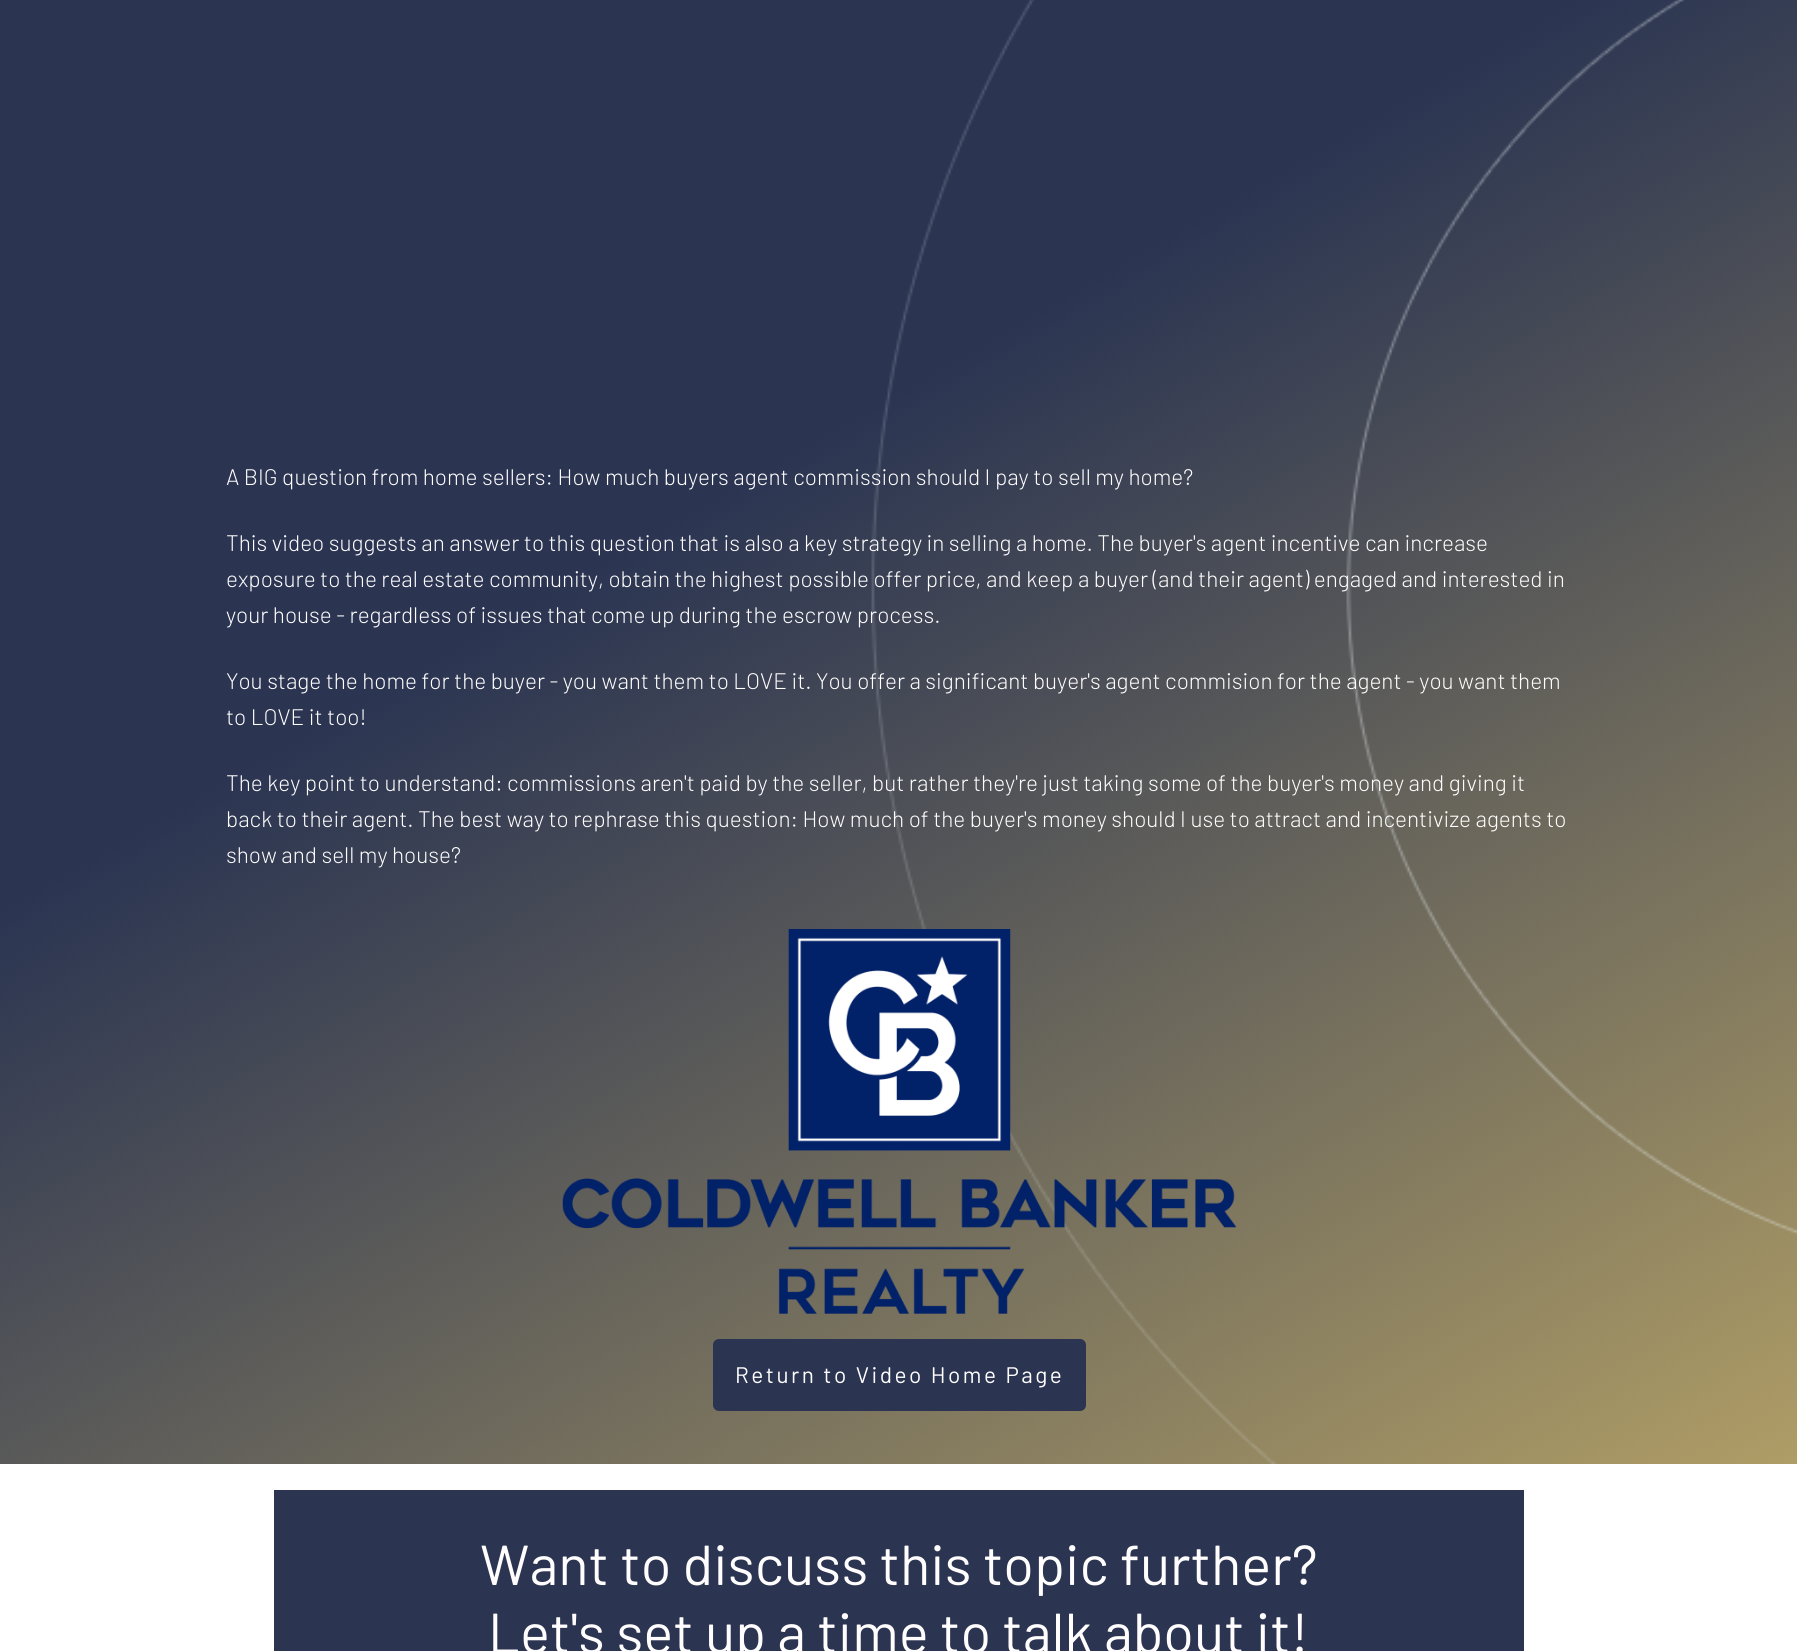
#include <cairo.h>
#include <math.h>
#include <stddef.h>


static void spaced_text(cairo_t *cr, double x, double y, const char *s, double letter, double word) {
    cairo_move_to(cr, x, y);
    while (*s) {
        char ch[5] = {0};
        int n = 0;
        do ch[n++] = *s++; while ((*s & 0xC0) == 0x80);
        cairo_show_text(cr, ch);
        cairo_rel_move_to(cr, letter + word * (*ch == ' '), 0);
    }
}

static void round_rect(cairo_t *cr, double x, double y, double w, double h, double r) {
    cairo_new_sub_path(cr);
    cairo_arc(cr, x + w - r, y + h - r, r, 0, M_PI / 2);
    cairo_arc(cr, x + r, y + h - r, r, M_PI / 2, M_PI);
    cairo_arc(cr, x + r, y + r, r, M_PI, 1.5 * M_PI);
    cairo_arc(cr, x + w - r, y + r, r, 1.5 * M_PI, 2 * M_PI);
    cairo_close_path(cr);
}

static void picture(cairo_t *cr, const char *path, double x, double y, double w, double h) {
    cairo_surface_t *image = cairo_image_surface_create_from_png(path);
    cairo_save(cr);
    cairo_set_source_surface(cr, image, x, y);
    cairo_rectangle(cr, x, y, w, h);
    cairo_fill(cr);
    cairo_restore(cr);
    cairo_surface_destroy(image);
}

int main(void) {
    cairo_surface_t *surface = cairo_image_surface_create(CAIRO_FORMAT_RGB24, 1797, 1651);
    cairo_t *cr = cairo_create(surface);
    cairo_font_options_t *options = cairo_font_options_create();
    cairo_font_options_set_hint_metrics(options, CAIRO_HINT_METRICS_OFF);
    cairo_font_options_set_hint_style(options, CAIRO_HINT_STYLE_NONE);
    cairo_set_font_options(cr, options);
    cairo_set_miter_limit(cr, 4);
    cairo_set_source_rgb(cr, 1, 1, 1);
    cairo_paint(cr);
    picture(cr, "img1.png", 0, 0, 1797, 1464);
    cairo_select_font_face(cr, "Barlow Light", CAIRO_FONT_SLANT_NORMAL, CAIRO_FONT_WEIGHT_NORMAL);
    cairo_set_font_size(cr, 22.5);
    cairo_set_source_rgb(cr, 1, 0.992, 0.992);
    cairo_move_to(cr, 226, 485);
    cairo_show_text(cr, "A BIG question from home sellers: How much buyers agent commission should I pay to sell my home?");
    cairo_move_to(cr, 226, 551);
    cairo_show_text(cr, "This video suggests an answer to this question that is also a key strategy in selling a home. The buyer's agent incentive can increase");
    cairo_move_to(cr, 226, 587);
    cairo_show_text(cr, "exposure to the real estate community, obtain the highest possible offer price, and keep a buyer (and their agent) engaged and interested in");
    cairo_move_to(cr, 226, 623);
    cairo_show_text(cr, "your house - regardless of issues that come up during the escrow process.");
    cairo_move_to(cr, 226, 689);
    cairo_show_text(cr, "You stage the home for the buyer - you want them to LOVE it. You offer a significant buyer's agent commision for the agent - you want them");
    cairo_move_to(cr, 226, 725);
    cairo_show_text(cr, "to LOVE it too!");
    cairo_move_to(cr, 226, 791);
    cairo_show_text(cr, "The key point to understand: commissions aren't paid by the seller, but rather they're just taking some of the buyer's money and giving it");
    cairo_move_to(cr, 226, 827);
    cairo_show_text(cr, "back to their agent. The best way to rephrase this question: How much of the buyer's money should I use to attract and incentivize agents to");
    cairo_move_to(cr, 226, 863);
    cairo_show_text(cr, "show and sell my house?");
    picture(cr, "img2.png", 562, 929, 675, 385);
    cairo_set_source_rgb(cr, 0.169, 0.208, 0.322);
    round_rect(cr, 713, 1339, 373, 72, 6);
    cairo_fill(cr);
    cairo_select_font_face(cr, "Barlow", CAIRO_FONT_SLANT_NORMAL, CAIRO_FONT_WEIGHT_NORMAL);
    cairo_set_source_rgb(cr, 1, 0.992, 0.992);
    spaced_text(cr, 735, 1383, "Return to Video Home Page", 2.5, 0);
    cairo_set_source_rgb(cr, 0.169, 0.208, 0.322);
    cairo_rectangle(cr, 274, 1490, 1250, 161);
    cairo_fill(cr);
    cairo_set_font_size(cr, 56.25);
    cairo_set_source_rgb(cr, 1, 0.992, 0.992);
    cairo_move_to(cr, 480, 1585);
    cairo_show_text(cr, "Want to discuss this topic further?");
    cairo_move_to(cr, 488, 1653);
    cairo_show_text(cr, "Let's set up a time to talk about it!");
    cairo_surface_write_to_png(surface, "page.png");
    cairo_font_options_destroy(options);
    cairo_destroy(cr);
    cairo_surface_destroy(surface);
    return 0;
}
